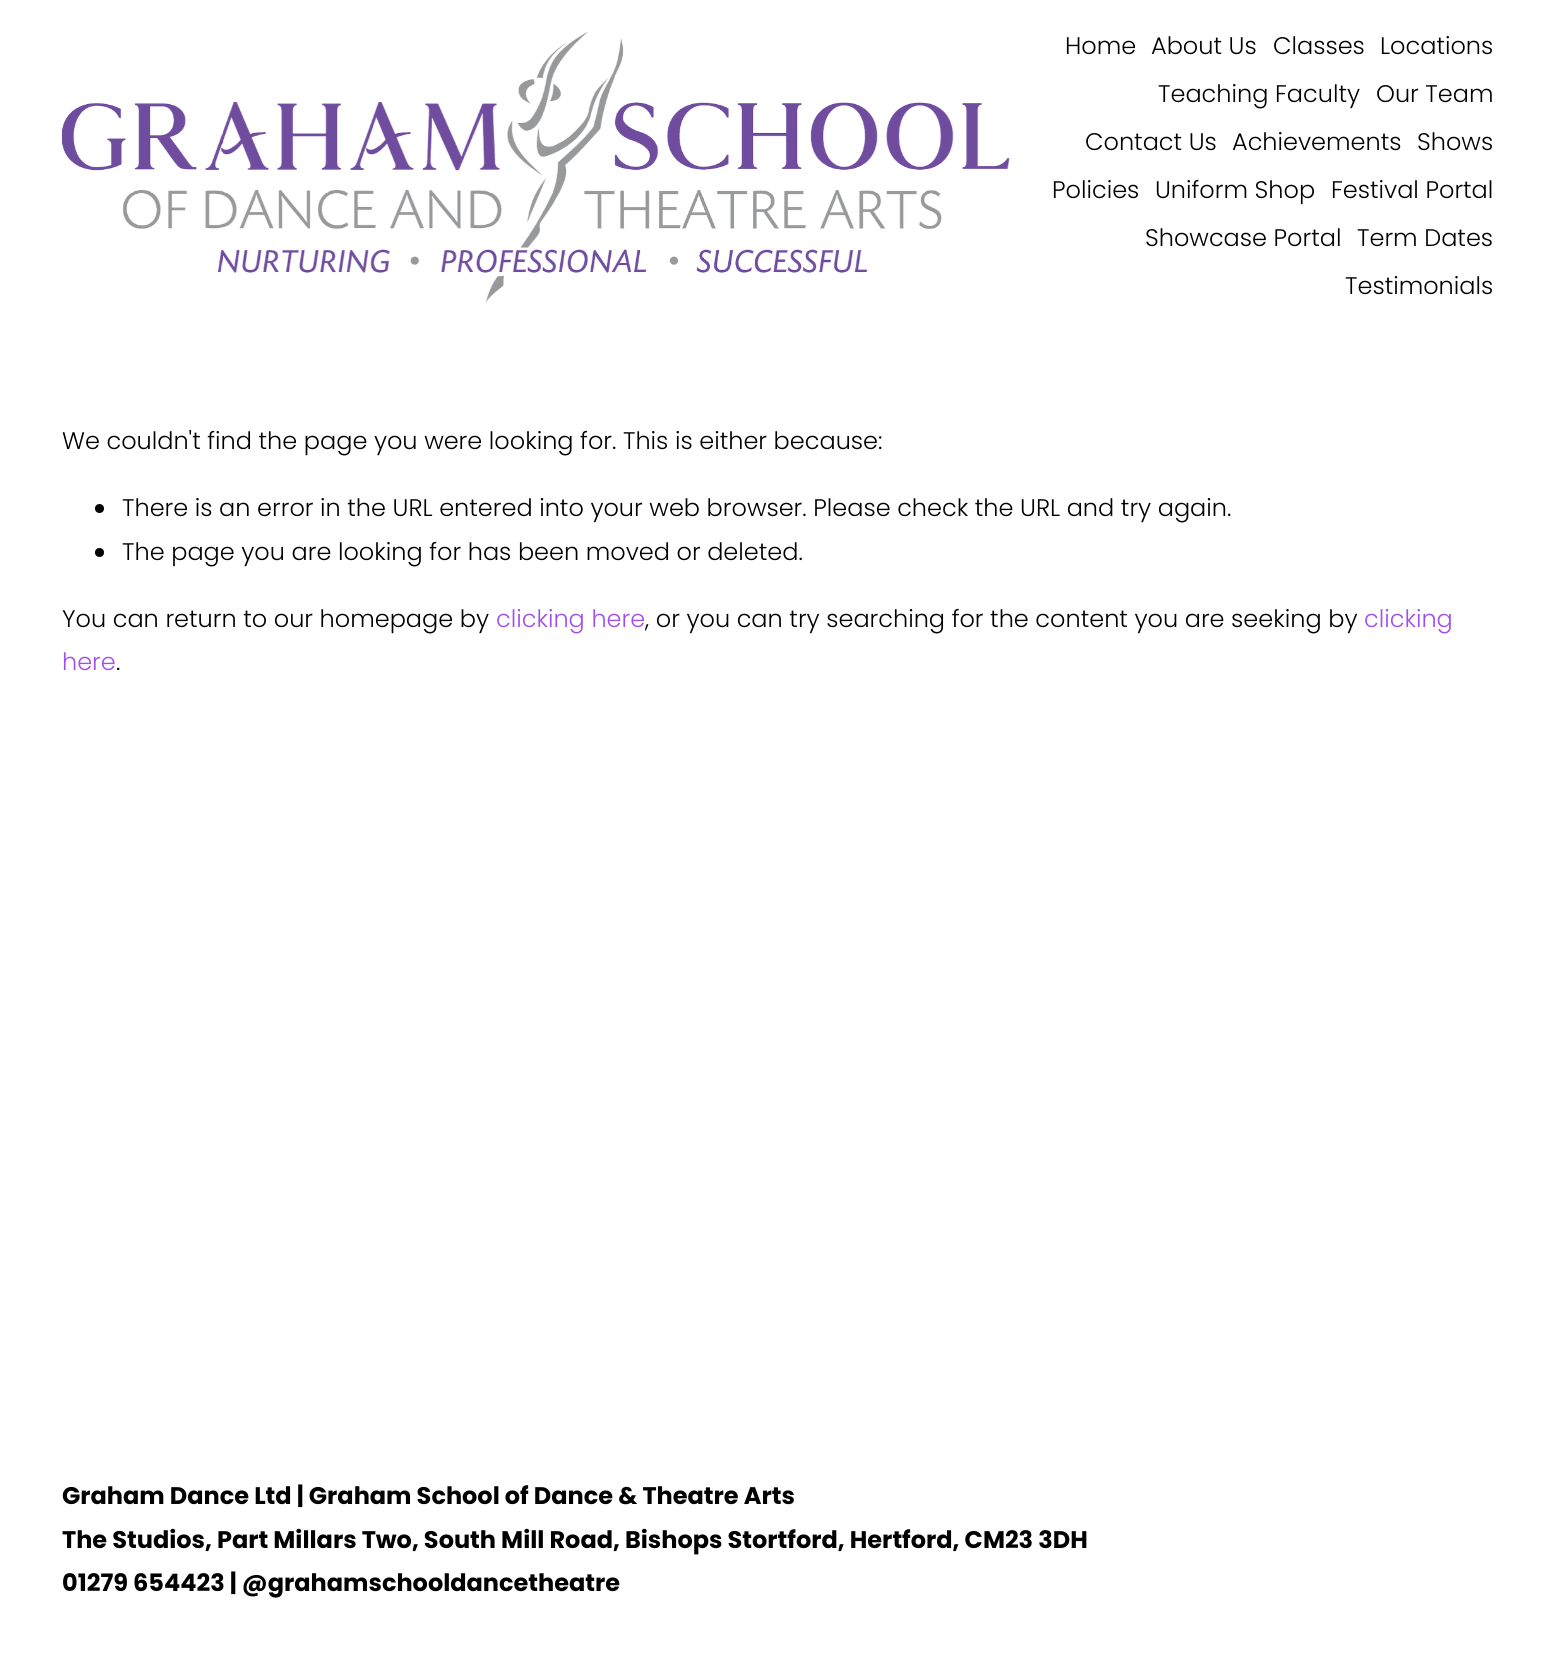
#include <cairo.h>
#include <math.h>
#include <stddef.h>


static void picture(cairo_t *cr, const char *path, double x, double y, double w, double h) {
    cairo_surface_t *image = cairo_image_surface_create_from_png(path);
    cairo_save(cr);
    cairo_set_source_surface(cr, image, x, y);
    cairo_rectangle(cr, x, y, w, h);
    cairo_fill(cr);
    cairo_restore(cr);
    cairo_surface_destroy(image);
}

int main(void) {
    cairo_surface_t *surface = cairo_image_surface_create(CAIRO_FORMAT_RGB24, 1555, 1669);
    cairo_t *cr = cairo_create(surface);
    cairo_font_options_t *options = cairo_font_options_create();
    cairo_font_options_set_hint_metrics(options, CAIRO_HINT_METRICS_OFF);
    cairo_font_options_set_hint_style(options, CAIRO_HINT_STYLE_NONE);
    cairo_set_font_options(cr, options);
    cairo_set_miter_limit(cr, 4);
    cairo_set_source_rgb(cr, 1, 1, 1);
    cairo_paint(cr);
    picture(cr, "img1.png", 62, 32, 948, 271);
    cairo_select_font_face(cr, "Poppins Light", CAIRO_FONT_SLANT_NORMAL, CAIRO_FONT_WEIGHT_NORMAL);
    cairo_set_font_size(cr, 24);
    cairo_set_source_rgb(cr, 0, 0, 0);
    cairo_move_to(cr, 1065, 54);
    cairo_show_text(cr, "Home");
    cairo_move_to(cr, 1151, 54);
    cairo_show_text(cr, "About Us");
    cairo_move_to(cr, 1273, 54);
    cairo_show_text(cr, "Classes");
    cairo_move_to(cr, 1380, 54);
    cairo_show_text(cr, "Locations");
    cairo_move_to(cr, 1158, 102);
    cairo_show_text(cr, "Teaching Faculty");
    cairo_move_to(cr, 1376, 102);
    cairo_show_text(cr, "Our Team");
    cairo_move_to(cr, 1085, 150);
    cairo_show_text(cr, "Contact Us");
    cairo_move_to(cr, 1232, 150);
    cairo_show_text(cr, "Achievements");
    cairo_move_to(cr, 1417, 150);
    cairo_show_text(cr, "Shows");
    cairo_move_to(cr, 1052, 198);
    cairo_show_text(cr, "Policies");
    cairo_move_to(cr, 1155, 198);
    cairo_show_text(cr, "Uniform Shop");
    cairo_move_to(cr, 1331, 198);
    cairo_show_text(cr, "Festival Portal");
    cairo_move_to(cr, 1145, 246);
    cairo_show_text(cr, "Showcase Portal");
    cairo_move_to(cr, 1357, 246);
    cairo_show_text(cr, "Term Dates");
    cairo_move_to(cr, 1345, 294);
    cairo_show_text(cr, "Testimonials");
    cairo_move_to(cr, 62, 449);
    cairo_show_text(cr, "We couldn't find the page you were looking for. This is either because:");
    cairo_new_path(cr);
    cairo_arc(cr, 99.5, 508.5, 4.5, 0, 2 * M_PI);
    cairo_fill(cr);
    cairo_move_to(cr, 122, 516);
    cairo_show_text(cr, "There is an error in the URL entered into your web browser. Please check the URL and try again.");
    cairo_new_path(cr);
    cairo_arc(cr, 99.5, 552.5, 4.5, 0, 2 * M_PI);
    cairo_fill(cr);
    cairo_move_to(cr, 122, 560);
    cairo_show_text(cr, "The page you are looking for has been moved or deleted.");
    cairo_move_to(cr, 62, 627);
    cairo_show_text(cr, "You can return to our homepage by");
    cairo_set_source_rgb(cr, 0.635, 0.306, 0.918);
    cairo_move_to(cr, 496, 627);
    cairo_show_text(cr, "clicking here");
    cairo_set_source_rgb(cr, 0, 0, 0);
    cairo_move_to(cr, 645, 627);
    cairo_show_text(cr, ", or you can try searching for the content you are seeking by");
    cairo_set_source_rgb(cr, 0.635, 0.306, 0.918);
    cairo_move_to(cr, 1364, 627);
    cairo_show_text(cr, "clicking");
    cairo_move_to(cr, 62, 670);
    cairo_show_text(cr, "here");
    cairo_set_source_rgb(cr, 0, 0, 0);
    cairo_move_to(cr, 116, 670);
    cairo_show_text(cr, ".");
    cairo_select_font_face(cr, "Poppins", CAIRO_FONT_SLANT_NORMAL, CAIRO_FONT_WEIGHT_BOLD);
    cairo_move_to(cr, 62, 1504);
    cairo_show_text(cr, "Graham Dance Ltd | Graham School of Dance & Theatre Arts");
    cairo_move_to(cr, 62, 1548);
    cairo_show_text(cr, "The Studios, Part Millars Two, South Mill Road, Bishops Stortford, Hertford, CM23 3DH");
    cairo_move_to(cr, 62, 1591);
    cairo_show_text(cr, "01279 654423 | @grahamschooldancetheatre");
    cairo_surface_write_to_png(surface, "page.png");
    cairo_font_options_destroy(options);
    cairo_destroy(cr);
    cairo_surface_destroy(surface);
    return 0;
}
